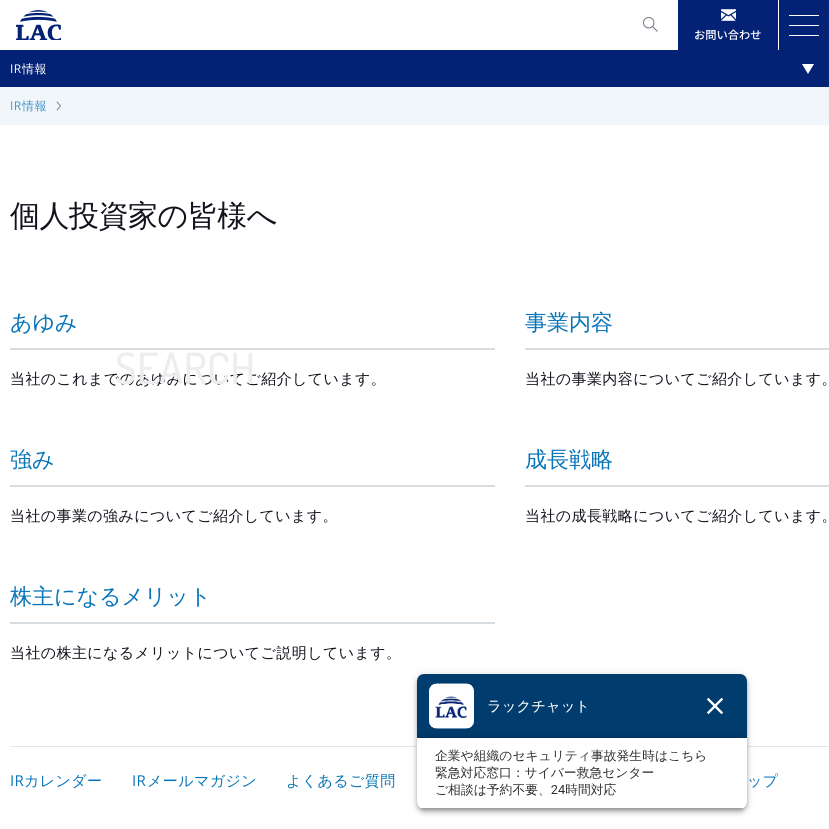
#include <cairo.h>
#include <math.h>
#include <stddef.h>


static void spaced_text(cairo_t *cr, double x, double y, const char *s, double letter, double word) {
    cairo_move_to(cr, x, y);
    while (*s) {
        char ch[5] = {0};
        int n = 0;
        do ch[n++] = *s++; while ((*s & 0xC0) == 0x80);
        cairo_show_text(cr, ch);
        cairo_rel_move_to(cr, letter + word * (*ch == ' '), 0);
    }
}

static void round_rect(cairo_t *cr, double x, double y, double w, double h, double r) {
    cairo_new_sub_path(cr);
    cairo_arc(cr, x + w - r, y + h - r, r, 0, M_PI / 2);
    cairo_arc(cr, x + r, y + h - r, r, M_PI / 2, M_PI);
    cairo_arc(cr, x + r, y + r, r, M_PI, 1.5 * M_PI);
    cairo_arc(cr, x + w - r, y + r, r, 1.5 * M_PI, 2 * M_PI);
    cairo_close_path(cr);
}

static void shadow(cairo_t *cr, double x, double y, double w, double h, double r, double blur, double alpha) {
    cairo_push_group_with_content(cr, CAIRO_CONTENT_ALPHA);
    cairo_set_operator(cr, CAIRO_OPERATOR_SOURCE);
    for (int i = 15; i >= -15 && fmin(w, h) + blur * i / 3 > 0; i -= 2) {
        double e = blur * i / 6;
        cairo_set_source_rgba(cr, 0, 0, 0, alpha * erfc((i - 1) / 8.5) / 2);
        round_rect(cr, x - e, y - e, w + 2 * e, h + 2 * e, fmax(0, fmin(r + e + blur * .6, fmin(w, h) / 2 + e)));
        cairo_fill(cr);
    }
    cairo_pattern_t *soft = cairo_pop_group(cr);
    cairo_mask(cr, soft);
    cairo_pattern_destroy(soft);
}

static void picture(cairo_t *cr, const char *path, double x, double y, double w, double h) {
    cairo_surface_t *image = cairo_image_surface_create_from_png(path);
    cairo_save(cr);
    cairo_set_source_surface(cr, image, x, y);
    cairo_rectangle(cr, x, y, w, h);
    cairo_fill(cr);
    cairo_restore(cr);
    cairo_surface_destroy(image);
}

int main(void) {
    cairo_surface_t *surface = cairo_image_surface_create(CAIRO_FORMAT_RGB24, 829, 829);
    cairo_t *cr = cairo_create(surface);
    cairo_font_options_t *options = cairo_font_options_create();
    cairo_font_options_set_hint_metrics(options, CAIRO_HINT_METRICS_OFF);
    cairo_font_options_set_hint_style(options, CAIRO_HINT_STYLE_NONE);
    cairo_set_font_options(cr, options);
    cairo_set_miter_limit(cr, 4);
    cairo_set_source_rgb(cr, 1, 1, 1);
    cairo_paint(cr);
    picture(cr, "img1.png", 16, 10, 45, 30);
    picture(cr, "img2.png", 643, 17, 15, 15);
    cairo_set_source_rgb(cr, 0.016, 0.133, 0.459);
    cairo_rectangle(cr, 779, 0, 50, 50);
    cairo_fill(cr);
    cairo_set_source_rgb(cr, 1, 1, 1);
    cairo_rectangle(cr, 789, 25, 30, 1);
    cairo_fill(cr);
    cairo_rectangle(cr, 789, 15, 30, 1);
    cairo_fill(cr);
    cairo_rectangle(cr, 789, 35, 30, 1);
    cairo_fill(cr);
    cairo_set_source_rgb(cr, 0.016, 0.133, 0.459);
    cairo_rectangle(cr, 678, 0, 100, 50);
    cairo_fill(cr);
    picture(cr, "img3.png", 721, 9, 15, 12);
    cairo_select_font_face(cr, "Noto Sans JP Medium", CAIRO_FONT_SLANT_NORMAL, CAIRO_FONT_WEIGHT_NORMAL);
    cairo_set_font_size(cr, 11.25);
    cairo_set_source_rgb(cr, 1, 1, 1);
    cairo_move_to(cr, 694, 39);
    cairo_show_text(cr, "お問い合わせ");
    cairo_set_source_rgb(cr, 0.016, 0.133, 0.459);
    cairo_rectangle(cr, 0, 50, 829, 37);
    cairo_fill(cr);
    cairo_select_font_face(cr, "Open Sans", CAIRO_FONT_SLANT_NORMAL, CAIRO_FONT_WEIGHT_NORMAL);
    cairo_set_font_size(cr, 12);
    cairo_set_source_rgb(cr, 1, 1, 1);
    spaced_text(cr, 10, 73, "IR", 0.4, 0);
    cairo_select_font_face(cr, "WenQuanYi Zen Hei Medium", CAIRO_FONT_SLANT_NORMAL, CAIRO_FONT_WEIGHT_NORMAL);
    spaced_text(cr, 22, 73, "情報", 0.4, 0);
    cairo_new_path(cr);
    cairo_move_to(cr, 802, 64);
    cairo_line_to(cr, 814, 64);
    cairo_line_to(cr, 808, 74);
    cairo_close_path(cr);
    cairo_fill(cr);
    cairo_set_source_rgb(cr, 0.941, 0.961, 0.98);
    cairo_rectangle(cr, 0, 87, 829, 38);
    cairo_fill(cr);
    cairo_select_font_face(cr, "Open Sans", CAIRO_FONT_SLANT_NORMAL, CAIRO_FONT_WEIGHT_NORMAL);
    cairo_set_source_rgb(cr, 0.267, 0.584, 0.788);
    spaced_text(cr, 10, 110, "IR", 0.4, 0);
    cairo_select_font_face(cr, "WenQuanYi Zen Hei Medium", CAIRO_FONT_SLANT_NORMAL, CAIRO_FONT_WEIGHT_NORMAL);
    spaced_text(cr, 22, 110, "情報", 0.4, 0);
    cairo_new_path(cr);
    cairo_move_to(cr, 57, 102);
    cairo_line_to(cr, 60.5, 106);
    cairo_line_to(cr, 57, 110);
    cairo_set_source_rgb(cr, 0.471, 0.482, 0.49);
    cairo_set_line_width(cr, 0.9);
    cairo_set_line_cap(cr, CAIRO_LINE_CAP_ROUND);
    cairo_set_line_join(cr, CAIRO_LINE_JOIN_ROUND);
    cairo_stroke(cr);
    cairo_set_font_size(cr, 30);
    cairo_set_source_rgb(cr, 0.078, 0.078, 0.118);
    spaced_text(cr, 10, 226, "個人投資家の皆様へ", -0.5, 0);
    cairo_set_source_rgb(cr, 0.843, 0.863, 0.882);
    cairo_rectangle(cr, 10, 348, 485, 2);
    cairo_fill(cr);
    cairo_set_font_size(cr, 22);
    cairo_set_source_rgb(cr, 0.039, 0.459, 0.722);
    cairo_move_to(cr, 10, 330);
    cairo_show_text(cr, "あゆみ");
    cairo_set_font_size(cr, 15);
    cairo_set_source_rgb(cr, 0.078, 0.078, 0.118);
    spaced_text(cr, 10, 384, "当社のこれまでのあゆみについてご紹介しています。", 0.4, 0);
    cairo_set_source_rgb(cr, 0.843, 0.863, 0.882);
    cairo_rectangle(cr, 525, 348, 304, 2);
    cairo_fill(cr);
    cairo_set_font_size(cr, 22);
    cairo_set_source_rgb(cr, 0.039, 0.459, 0.722);
    cairo_move_to(cr, 525, 330);
    cairo_show_text(cr, "事業内容");
    cairo_set_font_size(cr, 15);
    cairo_set_source_rgb(cr, 0.078, 0.078, 0.118);
    spaced_text(cr, 525, 384, "当社の事業内容についてご紹介しています。", 0.4, 0);
    cairo_set_source_rgb(cr, 0.843, 0.863, 0.882);
    cairo_rectangle(cr, 10, 485, 485, 2);
    cairo_fill(cr);
    cairo_set_font_size(cr, 22);
    cairo_set_source_rgb(cr, 0.039, 0.459, 0.722);
    cairo_move_to(cr, 10, 467);
    cairo_show_text(cr, "強み");
    cairo_set_font_size(cr, 15);
    cairo_set_source_rgb(cr, 0.078, 0.078, 0.118);
    spaced_text(cr, 10, 521, "当社の事業の強みについてご紹介しています。", 0.4, 0);
    cairo_set_source_rgb(cr, 0.843, 0.863, 0.882);
    cairo_rectangle(cr, 525, 485, 304, 2);
    cairo_fill(cr);
    cairo_set_font_size(cr, 22);
    cairo_set_source_rgb(cr, 0.039, 0.459, 0.722);
    cairo_move_to(cr, 525, 467);
    cairo_show_text(cr, "成長戦略");
    cairo_set_font_size(cr, 15);
    cairo_set_source_rgb(cr, 0.078, 0.078, 0.118);
    spaced_text(cr, 525, 521, "当社の成長戦略についてご紹介しています。", 0.4, 0);
    cairo_set_source_rgb(cr, 0.843, 0.863, 0.882);
    cairo_rectangle(cr, 10, 622, 485, 2);
    cairo_fill(cr);
    cairo_set_font_size(cr, 22);
    cairo_set_source_rgb(cr, 0.039, 0.459, 0.722);
    cairo_move_to(cr, 10, 604);
    cairo_show_text(cr, "株主になるメリット");
    cairo_set_font_size(cr, 15);
    cairo_set_source_rgb(cr, 0.078, 0.078, 0.118);
    spaced_text(cr, 10, 658, "当社の株主になるメリットについてご説明しています。", 0.4, 0);
    cairo_set_source_rgb(cr, 0.902, 0.902, 0.902);
    cairo_rectangle(cr, 10, 746, 819, 1);
    cairo_fill(cr);
    cairo_select_font_face(cr, "Open Sans", CAIRO_FONT_SLANT_NORMAL, CAIRO_FONT_WEIGHT_NORMAL);
    cairo_set_source_rgb(cr, 0.039, 0.459, 0.722);
    spaced_text(cr, 10, 786, "IR", 0.4, 0);
    cairo_select_font_face(cr, "WenQuanYi Zen Hei Medium", CAIRO_FONT_SLANT_NORMAL, CAIRO_FONT_WEIGHT_NORMAL);
    spaced_text(cr, 24, 786, "カレンダー", 0.4, 0);
    cairo_select_font_face(cr, "Open Sans", CAIRO_FONT_SLANT_NORMAL, CAIRO_FONT_WEIGHT_NORMAL);
    spaced_text(cr, 132, 786, "IR", 0.4, 0);
    cairo_select_font_face(cr, "WenQuanYi Zen Hei Medium", CAIRO_FONT_SLANT_NORMAL, CAIRO_FONT_WEIGHT_NORMAL);
    spaced_text(cr, 147, 786, "メールマガジン", 0.4, 0);
    spaced_text(cr, 286, 786, "よくあるご質問", 0.4, 0);
    spaced_text(cr, 747, 786, "ップ", 0.4, 0);
    cairo_select_font_face(cr, "Dosis Medium", CAIRO_FONT_SLANT_NORMAL, CAIRO_FONT_WEIGHT_NORMAL);
    cairo_set_font_size(cr, 43);
    cairo_set_source_rgb(cr, 0.929, 0.929, 0.933);
    spaced_text(cr, 115, 384, "SEARCH", 0.4, 0);
    cairo_set_source_rgb(cr, 0, 0, 0);
    shadow(cr, 418, 677, 328, 133, 6, 2, 0.3);
    shadow(cr, 417, 675, 330, 135, 7, 5, 0.12);
    shadow(cr, 417, 678, 330, 135, 7, 2.5, 0.14);
    picture(cr, "img4.png", 417, 674, 330, 134);
    cairo_surface_write_to_png(surface, "page.png");
    cairo_font_options_destroy(options);
    cairo_destroy(cr);
    cairo_surface_destroy(surface);
    return 0;
}
